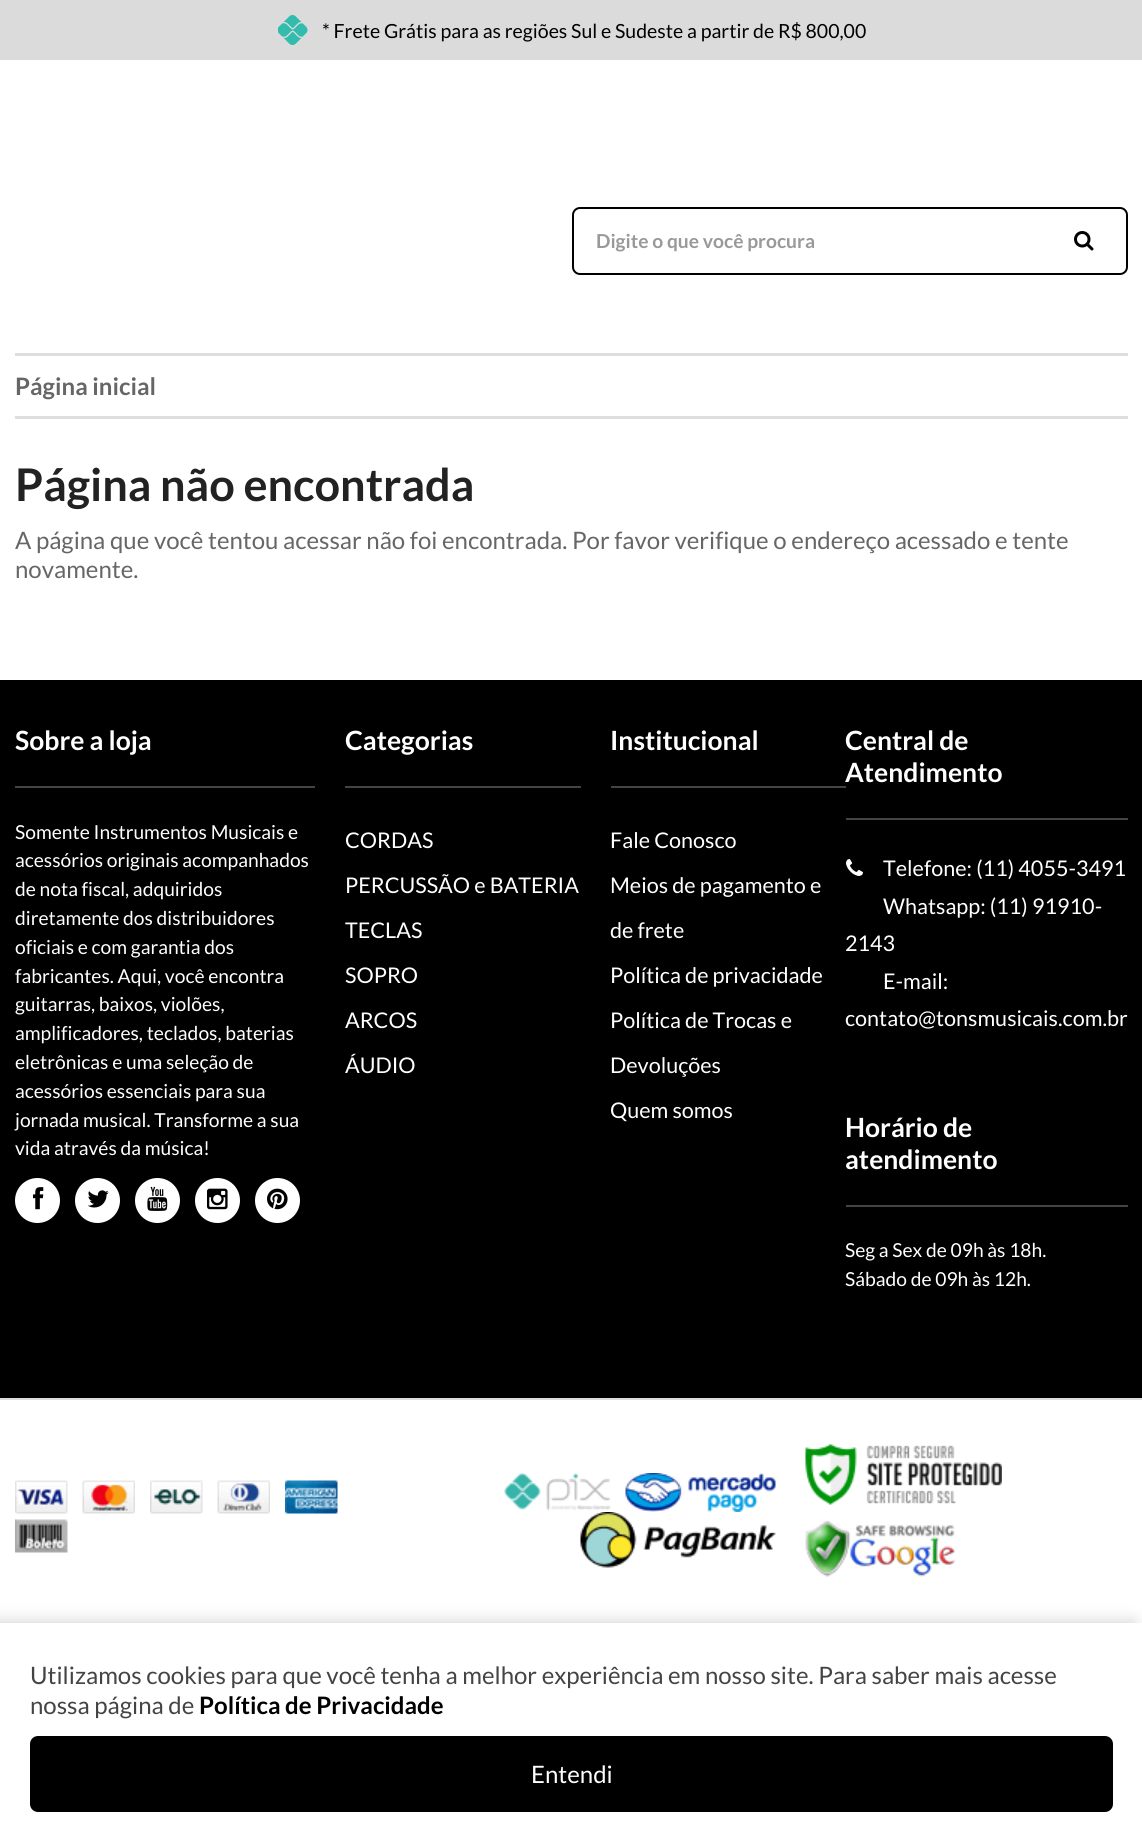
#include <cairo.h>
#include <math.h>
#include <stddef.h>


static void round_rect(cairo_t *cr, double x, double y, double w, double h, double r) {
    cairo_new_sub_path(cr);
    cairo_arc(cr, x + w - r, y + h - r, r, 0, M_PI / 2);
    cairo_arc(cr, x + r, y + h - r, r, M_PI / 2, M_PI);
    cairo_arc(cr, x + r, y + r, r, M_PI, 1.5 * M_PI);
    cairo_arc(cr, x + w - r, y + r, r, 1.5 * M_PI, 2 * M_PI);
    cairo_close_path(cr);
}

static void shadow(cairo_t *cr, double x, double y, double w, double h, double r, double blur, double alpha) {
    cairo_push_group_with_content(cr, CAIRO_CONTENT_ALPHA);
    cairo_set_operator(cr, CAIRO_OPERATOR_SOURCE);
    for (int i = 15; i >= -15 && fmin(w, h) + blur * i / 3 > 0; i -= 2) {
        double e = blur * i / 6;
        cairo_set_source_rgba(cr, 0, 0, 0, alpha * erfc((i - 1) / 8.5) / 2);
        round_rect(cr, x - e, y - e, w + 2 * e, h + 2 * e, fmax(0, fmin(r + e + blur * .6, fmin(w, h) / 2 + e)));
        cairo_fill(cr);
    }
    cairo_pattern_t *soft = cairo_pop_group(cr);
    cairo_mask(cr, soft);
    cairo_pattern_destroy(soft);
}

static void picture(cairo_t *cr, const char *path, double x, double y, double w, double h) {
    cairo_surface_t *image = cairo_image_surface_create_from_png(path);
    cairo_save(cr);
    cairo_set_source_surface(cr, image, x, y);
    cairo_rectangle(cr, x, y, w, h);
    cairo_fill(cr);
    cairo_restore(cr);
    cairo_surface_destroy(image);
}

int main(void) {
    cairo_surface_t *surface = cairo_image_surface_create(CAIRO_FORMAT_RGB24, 1142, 1848);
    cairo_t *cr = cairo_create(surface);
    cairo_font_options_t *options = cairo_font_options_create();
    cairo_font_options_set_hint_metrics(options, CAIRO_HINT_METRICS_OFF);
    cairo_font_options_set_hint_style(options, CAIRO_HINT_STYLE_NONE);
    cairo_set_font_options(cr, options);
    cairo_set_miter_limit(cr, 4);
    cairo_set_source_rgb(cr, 1, 1, 1);
    cairo_paint(cr);
    cairo_set_source_rgb(cr, 0.859, 0.859, 0.859);
    cairo_rectangle(cr, 0, 0, 1142, 60);
    cairo_fill(cr);
    picture(cr, "img1.png", 278, 15, 30, 30);
    cairo_select_font_face(cr, "Lato", CAIRO_FONT_SLANT_NORMAL, CAIRO_FONT_WEIGHT_NORMAL);
    cairo_set_font_size(cr, 19.5);
    cairo_set_source_rgb(cr, 0, 0, 0);
    cairo_move_to(cr, 322, 38);
    cairo_show_text(cr, "* Frete Grátis para as regiões Sul e Sudeste a partir de R$ 800,00");
    round_rect(cr, 573, 208, 554, 66, 7);
    cairo_stroke(cr);
    cairo_select_font_face(cr, "Lato", CAIRO_FONT_SLANT_NORMAL, CAIRO_FONT_WEIGHT_BOLD);
    cairo_set_font_size(cr, 19.25);
    cairo_set_source_rgb(cr, 0.6, 0.6, 0.6);
    cairo_move_to(cr, 596, 248);
    cairo_show_text(cr, "Digite o que você procura");
    picture(cr, "img2.png", 1074, 231, 20, 20);
    cairo_set_source_rgb(cr, 0.871, 0.871, 0.871);
    cairo_rectangle(cr, 15, 353, 1113, 3);
    cairo_fill(cr);
    cairo_rectangle(cr, 15, 416, 1113, 3);
    cairo_fill(cr);
    cairo_set_font_size(cr, 24);
    cairo_set_source_rgb(cr, 0.4, 0.4, 0.4);
    cairo_move_to(cr, 15, 395);
    cairo_show_text(cr, "Página inicial");
    cairo_set_font_size(cr, 45);
    cairo_set_source_rgb(cr, 0.133, 0.133, 0.133);
    cairo_move_to(cr, 15, 501);
    cairo_show_text(cr, "Página não encontrada");
    cairo_select_font_face(cr, "Lato", CAIRO_FONT_SLANT_NORMAL, CAIRO_FONT_WEIGHT_NORMAL);
    cairo_set_font_size(cr, 24);
    cairo_set_source_rgb(cr, 0.4, 0.4, 0.4);
    cairo_move_to(cr, 15, 549);
    cairo_show_text(cr, "A página que você tentou acessar não foi encontrada. Por favor verifique o endereço acessado e tente");
    cairo_move_to(cr, 15, 578);
    cairo_show_text(cr, "novamente.");
    cairo_set_source_rgb(cr, 0, 0, 0);
    cairo_rectangle(cr, 0, 680, 1142, 718);
    cairo_fill(cr);
    cairo_set_source_rgb(cr, 0.267, 0.267, 0.267);
    cairo_rectangle(cr, 15, 786, 300, 2);
    cairo_fill(cr);
    cairo_select_font_face(cr, "Lato", CAIRO_FONT_SLANT_NORMAL, CAIRO_FONT_WEIGHT_BOLD);
    cairo_set_font_size(cr, 26.5);
    cairo_set_source_rgb(cr, 1, 1, 1);
    cairo_move_to(cr, 15, 750);
    cairo_show_text(cr, "Sobre a loja");
    cairo_select_font_face(cr, "Lato", CAIRO_FONT_SLANT_NORMAL, CAIRO_FONT_WEIGHT_NORMAL);
    cairo_set_font_size(cr, 19.25);
    cairo_move_to(cr, 15, 839);
    cairo_show_text(cr, "Somente Instrumentos Musicais e");
    cairo_move_to(cr, 15, 867);
    cairo_show_text(cr, "acessórios originais acompanhados");
    cairo_move_to(cr, 15, 896);
    cairo_show_text(cr, "de nota fiscal, adquiridos");
    cairo_move_to(cr, 15, 925);
    cairo_show_text(cr, "diretamente dos distribuidores");
    cairo_move_to(cr, 15, 954);
    cairo_show_text(cr, "oficiais e com garantia dos");
    cairo_move_to(cr, 15, 983);
    cairo_show_text(cr, "fabricantes. Aqui, você encontra");
    cairo_move_to(cr, 15, 1011);
    cairo_show_text(cr, "guitarras, baixos, violões,");
    cairo_move_to(cr, 15, 1040);
    cairo_show_text(cr, "amplificadores, teclados, baterias");
    cairo_move_to(cr, 15, 1069);
    cairo_show_text(cr, "eletrônicas e uma seleção de");
    cairo_move_to(cr, 15, 1098);
    cairo_show_text(cr, "acessórios essenciais para sua");
    cairo_move_to(cr, 15, 1127);
    cairo_show_text(cr, "jornada musical. Transforme a sua");
    cairo_move_to(cr, 15, 1155);
    cairo_show_text(cr, "vida através da música!");
    cairo_new_path(cr);
    cairo_arc(cr, 37.5, 1200.5, 22.5, 0, 2 * M_PI);
    cairo_fill(cr);
    picture(cr, "img3.png", 33, 1187, 11, 23);
    cairo_arc(cr, 97.5, 1200.5, 22.5, 0, 2 * M_PI);
    cairo_fill(cr);
    picture(cr, "img4.png", 87, 1190, 22, 18);
    cairo_arc(cr, 157.5, 1200.5, 22.5, 0, 2 * M_PI);
    cairo_fill(cr);
    picture(cr, "img5.png", 147, 1186, 21, 25);
    cairo_arc(cr, 217.5, 1200.5, 22.5, 0, 2 * M_PI);
    cairo_fill(cr);
    picture(cr, "img6.png", 207, 1188, 21, 22);
    cairo_arc(cr, 277.5, 1200.5, 22.5, 0, 2 * M_PI);
    cairo_fill(cr);
    picture(cr, "img7.png", 267, 1188, 21, 22);
    cairo_set_source_rgb(cr, 0.267, 0.267, 0.267);
    cairo_rectangle(cr, 345, 786, 236, 2);
    cairo_fill(cr);
    cairo_select_font_face(cr, "Lato", CAIRO_FONT_SLANT_NORMAL, CAIRO_FONT_WEIGHT_BOLD);
    cairo_set_font_size(cr, 26.5);
    cairo_set_source_rgb(cr, 1, 1, 1);
    cairo_move_to(cr, 345, 750);
    cairo_show_text(cr, "Categorias");
    cairo_select_font_face(cr, "Lato", CAIRO_FONT_SLANT_NORMAL, CAIRO_FONT_WEIGHT_NORMAL);
    cairo_set_font_size(cr, 21.6);
    cairo_move_to(cr, 345, 848);
    cairo_show_text(cr, "CORDAS");
    cairo_move_to(cr, 345, 893);
    cairo_show_text(cr, "PERCUSSÃO e BATERIA");
    cairo_move_to(cr, 345, 938);
    cairo_show_text(cr, "TECLAS");
    cairo_move_to(cr, 345, 983);
    cairo_show_text(cr, "SOPRO");
    cairo_move_to(cr, 345, 1028);
    cairo_show_text(cr, "ARCOS");
    cairo_move_to(cr, 345, 1073);
    cairo_show_text(cr, "ÁUDIO");
    cairo_set_source_rgb(cr, 0.267, 0.267, 0.267);
    cairo_rectangle(cr, 611, 786, 235, 2);
    cairo_fill(cr);
    cairo_select_font_face(cr, "Lato", CAIRO_FONT_SLANT_NORMAL, CAIRO_FONT_WEIGHT_BOLD);
    cairo_set_font_size(cr, 26.5);
    cairo_set_source_rgb(cr, 1, 1, 1);
    cairo_move_to(cr, 610, 750);
    cairo_show_text(cr, "Institucional");
    cairo_select_font_face(cr, "Lato", CAIRO_FONT_SLANT_NORMAL, CAIRO_FONT_WEIGHT_NORMAL);
    cairo_set_font_size(cr, 21.6);
    cairo_move_to(cr, 610, 848);
    cairo_show_text(cr, "Fale Conosco");
    cairo_move_to(cr, 610, 893);
    cairo_show_text(cr, "Meios de pagamento e");
    cairo_move_to(cr, 610, 938);
    cairo_show_text(cr, "de frete");
    cairo_move_to(cr, 610, 983);
    cairo_show_text(cr, "Política de privacidade");
    cairo_move_to(cr, 610, 1028);
    cairo_show_text(cr, "Política de Trocas e");
    cairo_move_to(cr, 610, 1073);
    cairo_show_text(cr, "Devoluções");
    cairo_move_to(cr, 610, 1118);
    cairo_show_text(cr, "Quem somos");
    cairo_set_source_rgb(cr, 0.267, 0.267, 0.267);
    cairo_rectangle(cr, 846, 818, 282, 2);
    cairo_fill(cr);
    cairo_select_font_face(cr, "Lato", CAIRO_FONT_SLANT_NORMAL, CAIRO_FONT_WEIGHT_BOLD);
    cairo_set_font_size(cr, 26.5);
    cairo_set_source_rgb(cr, 1, 1, 1);
    cairo_move_to(cr, 845, 750);
    cairo_show_text(cr, "Central de");
    cairo_move_to(cr, 845, 782);
    cairo_show_text(cr, "Atendimento");
    picture(cr, "img8.png", 846, 859, 17, 17);
    cairo_select_font_face(cr, "Lato", CAIRO_FONT_SLANT_NORMAL, CAIRO_FONT_WEIGHT_NORMAL);
    cairo_set_font_size(cr, 21.6);
    cairo_move_to(cr, 883, 876);
    cairo_show_text(cr, "Telefone: (11) 4055-3491");
    cairo_move_to(cr, 883, 914);
    cairo_show_text(cr, "Whatsapp: (11) 91910-");
    cairo_move_to(cr, 845, 951);
    cairo_show_text(cr, "2143");
    cairo_move_to(cr, 883, 989);
    cairo_show_text(cr, "E-mail:");
    cairo_move_to(cr, 845, 1026);
    cairo_show_text(cr, "contato@tonsmusicais.com.br");
    cairo_set_source_rgb(cr, 0.267, 0.267, 0.267);
    cairo_rectangle(cr, 846, 1205, 282, 2);
    cairo_fill(cr);
    cairo_select_font_face(cr, "Lato", CAIRO_FONT_SLANT_NORMAL, CAIRO_FONT_WEIGHT_BOLD);
    cairo_set_font_size(cr, 26.5);
    cairo_set_source_rgb(cr, 1, 1, 1);
    cairo_move_to(cr, 845, 1137);
    cairo_show_text(cr, "Horário de");
    cairo_move_to(cr, 845, 1169);
    cairo_show_text(cr, "atendimento");
    cairo_select_font_face(cr, "Lato", CAIRO_FONT_SLANT_NORMAL, CAIRO_FONT_WEIGHT_NORMAL);
    cairo_set_font_size(cr, 19.25);
    cairo_move_to(cr, 845, 1257);
    cairo_show_text(cr, "Seg a Sex de 09h às 18h.");
    cairo_move_to(cr, 845, 1286);
    cairo_show_text(cr, "Sábado de 09h às 12h.");
    cairo_set_source_rgb(cr, 0.867, 0.867, 0.867);
    cairo_rectangle(cr, 0, 1398, 1142, 2);
    cairo_fill(cr);
    picture(cr, "img9.png", 15, 1480, 53, 34);
    picture(cr, "img10.png", 82, 1480, 53, 34);
    picture(cr, "img11.png", 150, 1480, 53, 34);
    picture(cr, "img12.png", 217, 1480, 53, 34);
    picture(cr, "img13.png", 285, 1480, 53, 34);
    picture(cr, "img14.png", 15, 1519, 53, 34);
    picture(cr, "img15.png", 504, 1473, 107, 38);
    picture(cr, "img16.png", 625, 1473, 151, 39);
    picture(cr, "img17.png", 580, 1512, 196, 56);
    picture(cr, "img18.png", 805, 1444, 197, 61);
    picture(cr, "img19.png", 805, 1520, 151, 57);
    cairo_set_source_rgb(cr, 0, 0, 0);
    shadow(cr, -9, 1623, 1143, 225, 0, 9, 0.2);
    cairo_set_source_rgb(cr, 1, 1, 1);
    cairo_rectangle(cr, 0, 1623, 1142, 225);
    cairo_fill(cr);
    cairo_set_font_size(cr, 24);
    cairo_set_source_rgb(cr, 0.267, 0.267, 0.267);
    cairo_move_to(cr, 30, 1684);
    cairo_show_text(cr, "Utilizamos cookies para que você tenha a melhor experiência em nosso site. Para saber mais acesse");
    cairo_move_to(cr, 30, 1714);
    cairo_show_text(cr, "nossa página de");
    cairo_select_font_face(cr, "Lato", CAIRO_FONT_SLANT_NORMAL, CAIRO_FONT_WEIGHT_BOLD);
    cairo_set_source_rgb(cr, 0, 0, 0);
    cairo_move_to(cr, 199, 1714);
    cairo_show_text(cr, "Política de Privacidade");
    round_rect(cr, 30, 1736, 1083, 76, 8);
    cairo_fill(cr);
    cairo_select_font_face(cr, "Lato", CAIRO_FONT_SLANT_NORMAL, CAIRO_FONT_WEIGHT_NORMAL);
    cairo_set_source_rgb(cr, 1, 1, 1);
    cairo_move_to(cr, 531, 1783);
    cairo_show_text(cr, "Entendi");
    cairo_surface_write_to_png(surface, "page.png");
    cairo_font_options_destroy(options);
    cairo_destroy(cr);
    cairo_surface_destroy(surface);
    return 0;
}
